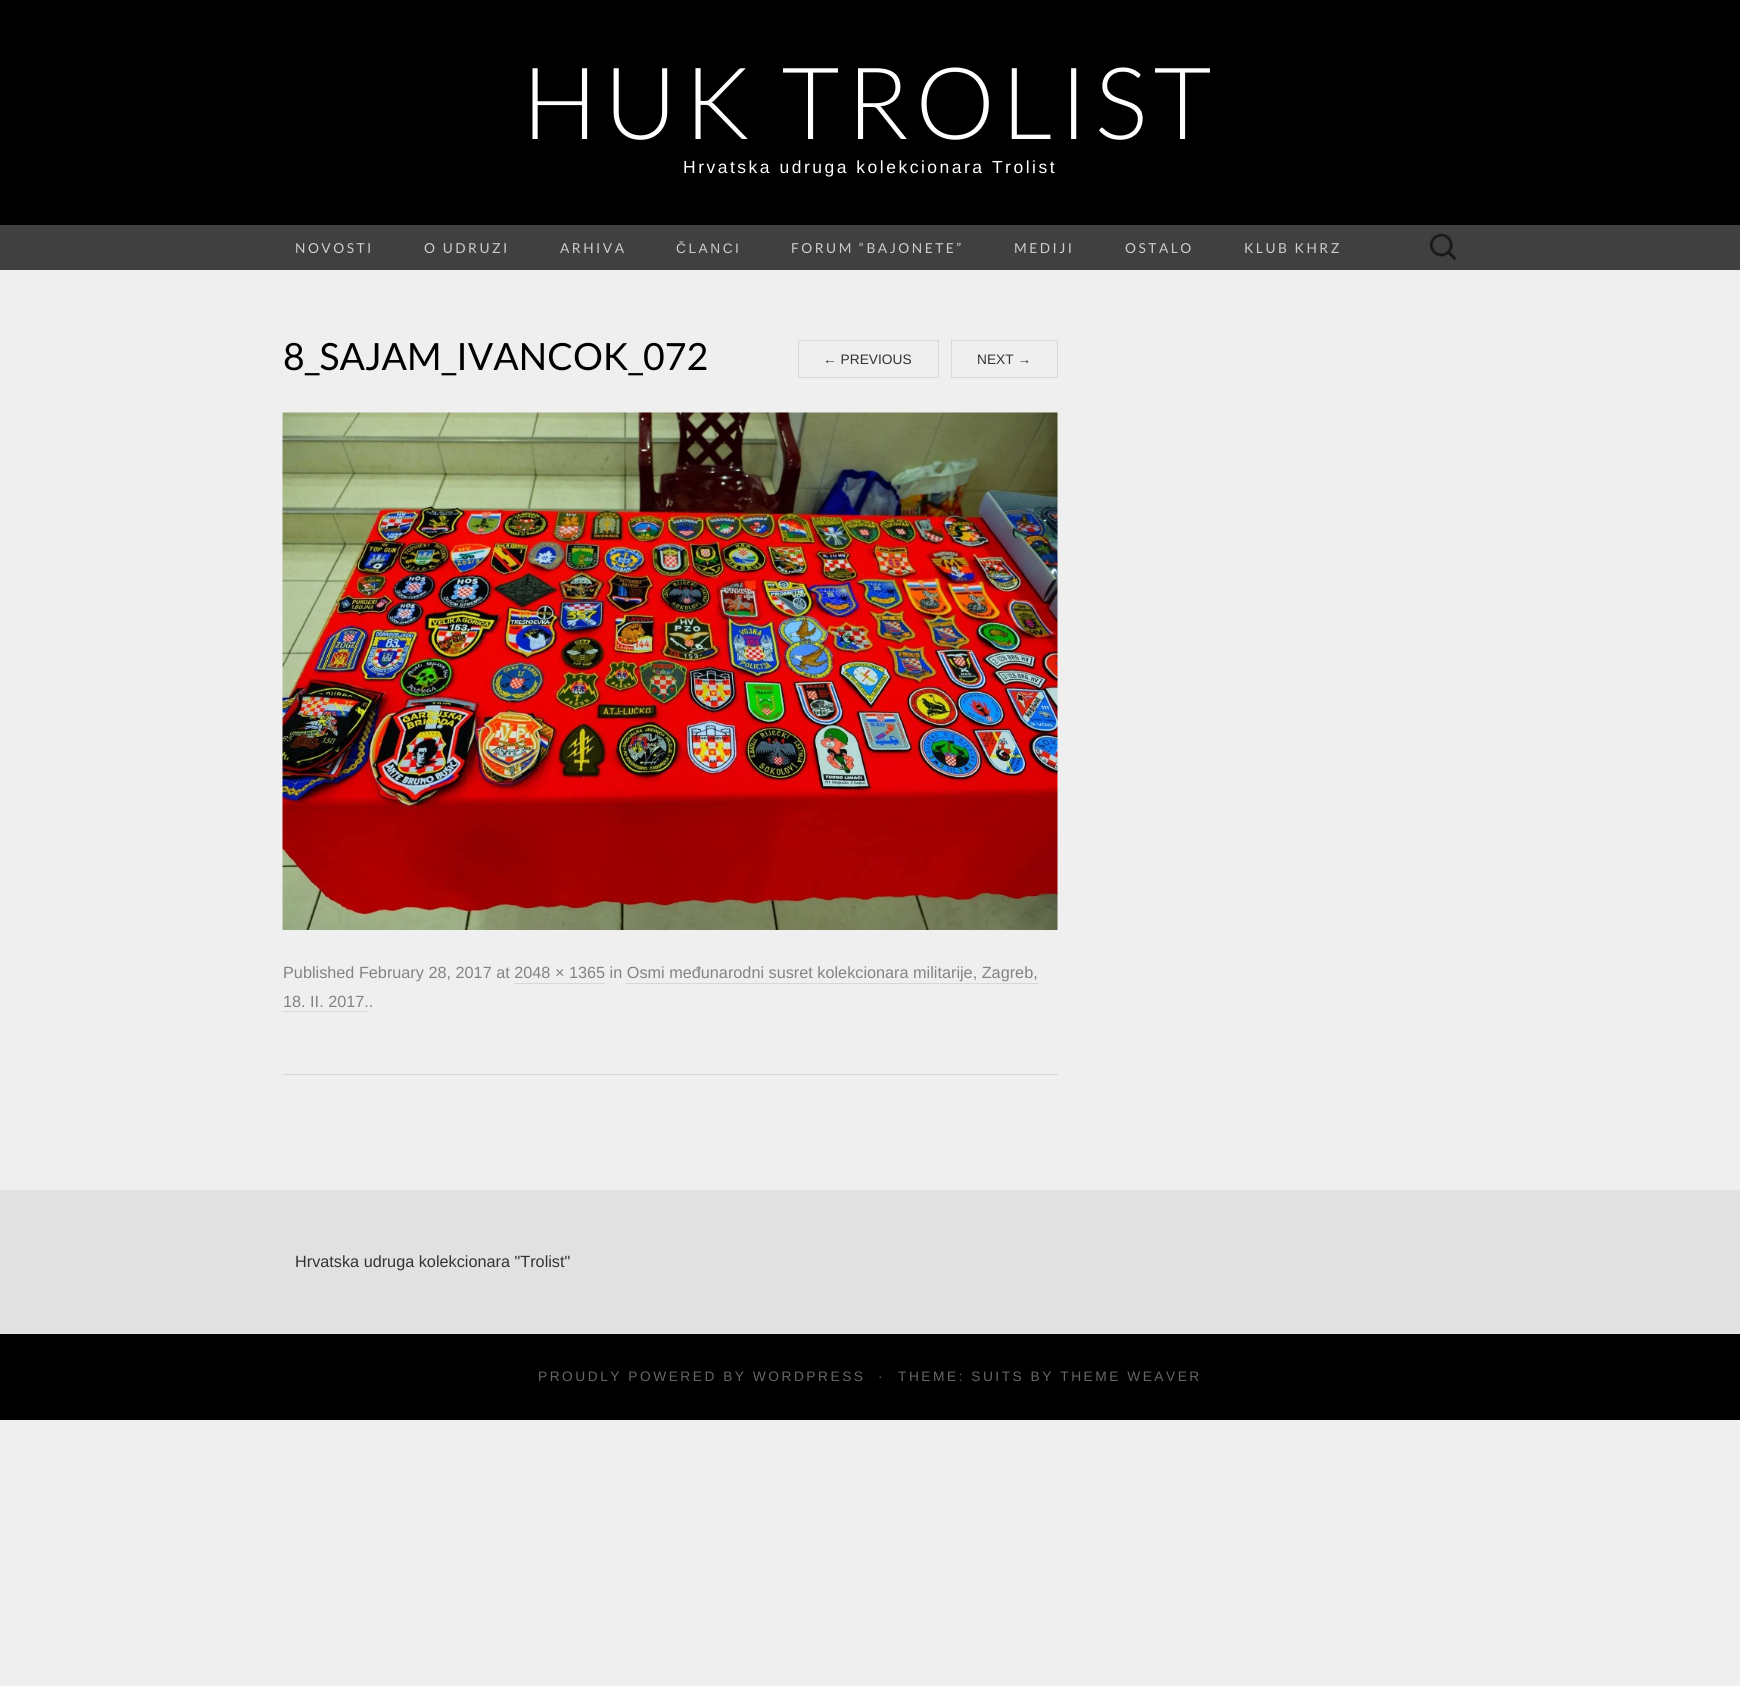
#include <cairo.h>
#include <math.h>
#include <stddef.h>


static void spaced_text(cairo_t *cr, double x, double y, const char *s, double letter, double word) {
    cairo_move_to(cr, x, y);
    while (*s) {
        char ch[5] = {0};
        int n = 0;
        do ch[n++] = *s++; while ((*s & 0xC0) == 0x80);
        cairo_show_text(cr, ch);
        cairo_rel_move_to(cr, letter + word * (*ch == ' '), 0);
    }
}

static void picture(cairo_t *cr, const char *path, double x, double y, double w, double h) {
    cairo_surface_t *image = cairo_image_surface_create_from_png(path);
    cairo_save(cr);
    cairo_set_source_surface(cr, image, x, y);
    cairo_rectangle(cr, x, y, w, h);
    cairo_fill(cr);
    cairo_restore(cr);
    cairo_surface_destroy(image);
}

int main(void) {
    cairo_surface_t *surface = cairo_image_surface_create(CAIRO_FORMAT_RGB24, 1740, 1686);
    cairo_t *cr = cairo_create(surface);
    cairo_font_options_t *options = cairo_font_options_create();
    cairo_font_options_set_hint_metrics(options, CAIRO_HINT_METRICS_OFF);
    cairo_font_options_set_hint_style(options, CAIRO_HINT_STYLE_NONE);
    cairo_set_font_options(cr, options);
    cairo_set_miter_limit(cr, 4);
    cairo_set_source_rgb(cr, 0.937, 0.937, 0.937);
    cairo_paint(cr);
    cairo_set_source_rgb(cr, 0, 0, 0);
    cairo_rectangle(cr, 0, 0, 1740, 225);
    cairo_fill(cr);
    cairo_select_font_face(cr, "Lato Light", CAIRO_FONT_SLANT_NORMAL, CAIRO_FONT_WEIGHT_NORMAL);
    cairo_set_font_size(cr, 100);
    cairo_set_source_rgb(cr, 1, 1, 1);
    spaced_text(cr, 522, 139, "HUK TROLIST", 6.25, 0);
    cairo_select_font_face(cr, "Liberation Sans", CAIRO_FONT_SLANT_NORMAL, CAIRO_FONT_WEIGHT_NORMAL);
    cairo_set_font_size(cr, 17.5);
    spaced_text(cr, 683, 173, "Hrvatska udruga kolekcionara Trolist", 2.5, 0);
    cairo_set_source_rgb(cr, 0.251, 0.251, 0.251);
    cairo_rectangle(cr, 0, 225, 1740, 45);
    cairo_fill(cr);
    cairo_select_font_face(cr, "Lato", CAIRO_FONT_SLANT_NORMAL, CAIRO_FONT_WEIGHT_NORMAL);
    cairo_set_font_size(cr, 13.75);
    cairo_set_source_rgb(cr, 0.8, 0.8, 0.8);
    spaced_text(cr, 295, 253, "NOVOSTI", 2.5, 0);
    spaced_text(cr, 424, 253, "O UDRUZI", 2.5, 0);
    spaced_text(cr, 560, 253, "ARHIVA", 2.5, 0);
    cairo_select_font_face(cr, "Liberation Sans", CAIRO_FONT_SLANT_NORMAL, CAIRO_FONT_WEIGHT_NORMAL);
    spaced_text(cr, 676, 253, "ČLANCI", 2.5, 0);
    cairo_select_font_face(cr, "Lato", CAIRO_FONT_SLANT_NORMAL, CAIRO_FONT_WEIGHT_NORMAL);
    spaced_text(cr, 791, 253, "FORUM “BAJONETE”", 2.5, 0);
    spaced_text(cr, 1014, 253, "MEDIJI", 2.5, 0);
    spaced_text(cr, 1125, 253, "OSTALO", 2.5, 0);
    spaced_text(cr, 1244, 253, "KLUB KHRZ", 2.5, 0);
    picture(cr, "img1.png", 1430, 233, 27, 28);
    cairo_set_source_rgb(cr, 0.843, 0.843, 0.843);
    cairo_rectangle(cr, 283, 1074, 775, 1);
    cairo_fill(cr);
    cairo_set_font_size(cr, 37.5);
    cairo_set_source_rgb(cr, 0, 0, 0);
    cairo_move_to(cr, 283, 370);
    cairo_show_text(cr, "8_SAJAM_IVANCOK_072");
    cairo_rectangle(cr, 798.5, 340.5, 140, 37);
    cairo_set_source_rgb(cr, 0.843, 0.843, 0.843);
    cairo_set_line_width(cr, 1);
    cairo_stroke(cr);
    cairo_select_font_face(cr, "Liberation Sans", CAIRO_FONT_SLANT_NORMAL, CAIRO_FONT_WEIGHT_NORMAL);
    cairo_set_font_size(cr, 13.75);
    cairo_set_source_rgb(cr, 0.2, 0.2, 0.2);
    cairo_move_to(cr, 823, 364);
    cairo_show_text(cr, "← PREVIOUS");
    cairo_rectangle(cr, 951.5, 340.5, 106, 37);
    cairo_set_source_rgb(cr, 0.843, 0.843, 0.843);
    cairo_stroke(cr);
    cairo_set_source_rgb(cr, 0.2, 0.2, 0.2);
    cairo_move_to(cr, 977, 364);
    cairo_show_text(cr, "NEXT →");
    cairo_set_source_rgb(cr, 0.843, 0.843, 0.843);
    cairo_rectangle(cr, 1057, 679, 1, 1);
    cairo_fill(cr);
    picture(cr, "img2.png", 282, 412, 776, 518);
    cairo_set_font_size(cr, 16.25);
    cairo_set_source_rgb(cr, 0.514, 0.514, 0.514);
    cairo_move_to(cr, 283, 978);
    cairo_show_text(cr, "Published February 28, 2017 at 2048 × 1365 in Osmi međunarodni susret kolekcionara militarije, Zagreb,");
    cairo_set_source_rgb(cr, 0.843, 0.843, 0.843);
    cairo_rectangle(cr, 514, 983, 91, 1);
    cairo_fill(cr);
    cairo_set_source_rgb(cr, 0.514, 0.514, 0.514);
    cairo_move_to(cr, 283, 1007);
    cairo_show_text(cr, "18. II. 2017..");
    cairo_set_source_rgb(cr, 0.843, 0.843, 0.843);
    cairo_rectangle(cr, 626, 983, 412, 1);
    cairo_fill(cr);
    cairo_rectangle(cr, 283, 1011, 86, 1);
    cairo_fill(cr);
    cairo_set_source_rgb(cr, 0.882, 0.882, 0.882);
    cairo_rectangle(cr, 0, 1190, 1740, 144);
    cairo_fill(cr);
    cairo_set_source_rgb(cr, 0.2, 0.2, 0.2);
    cairo_move_to(cr, 295, 1267);
    cairo_show_text(cr, "Hrvatska udruga kolekcionara \"Trolist\"");
    cairo_set_source_rgb(cr, 0, 0, 0);
    cairo_rectangle(cr, 0, 1334, 1740, 86);
    cairo_fill(cr);
    cairo_set_font_size(cr, 13.75);
    cairo_set_source_rgb(cr, 0.4, 0.4, 0.4);
    spaced_text(cr, 538, 1381, "PROUDLY POWERED BY WORDPRESS", 2.5, 0);
    spaced_text(cr, 878, 1381, "·", 2.5, 0);
    spaced_text(cr, 898, 1381, "THEME: SUITS BY THEME WEAVER", 2.5, 0);
    cairo_surface_write_to_png(surface, "page.png");
    cairo_font_options_destroy(options);
    cairo_destroy(cr);
    cairo_surface_destroy(surface);
    return 0;
}
